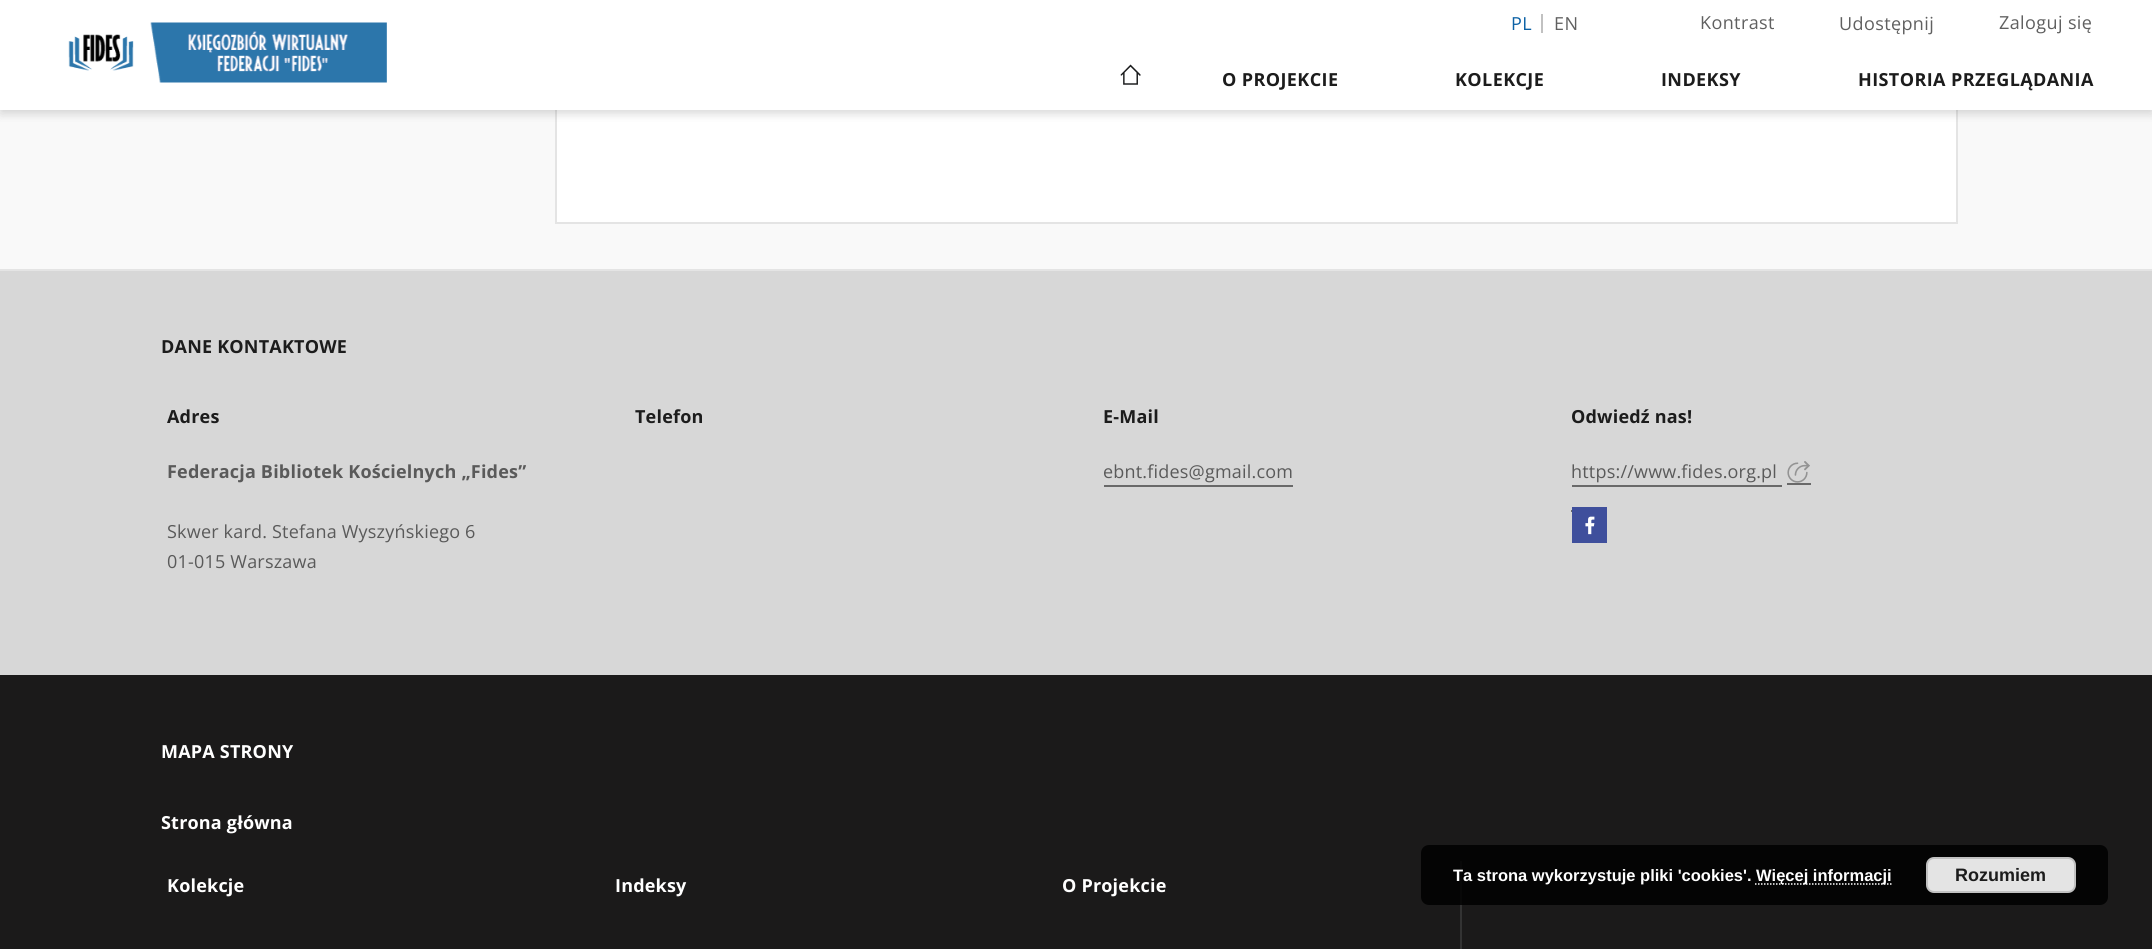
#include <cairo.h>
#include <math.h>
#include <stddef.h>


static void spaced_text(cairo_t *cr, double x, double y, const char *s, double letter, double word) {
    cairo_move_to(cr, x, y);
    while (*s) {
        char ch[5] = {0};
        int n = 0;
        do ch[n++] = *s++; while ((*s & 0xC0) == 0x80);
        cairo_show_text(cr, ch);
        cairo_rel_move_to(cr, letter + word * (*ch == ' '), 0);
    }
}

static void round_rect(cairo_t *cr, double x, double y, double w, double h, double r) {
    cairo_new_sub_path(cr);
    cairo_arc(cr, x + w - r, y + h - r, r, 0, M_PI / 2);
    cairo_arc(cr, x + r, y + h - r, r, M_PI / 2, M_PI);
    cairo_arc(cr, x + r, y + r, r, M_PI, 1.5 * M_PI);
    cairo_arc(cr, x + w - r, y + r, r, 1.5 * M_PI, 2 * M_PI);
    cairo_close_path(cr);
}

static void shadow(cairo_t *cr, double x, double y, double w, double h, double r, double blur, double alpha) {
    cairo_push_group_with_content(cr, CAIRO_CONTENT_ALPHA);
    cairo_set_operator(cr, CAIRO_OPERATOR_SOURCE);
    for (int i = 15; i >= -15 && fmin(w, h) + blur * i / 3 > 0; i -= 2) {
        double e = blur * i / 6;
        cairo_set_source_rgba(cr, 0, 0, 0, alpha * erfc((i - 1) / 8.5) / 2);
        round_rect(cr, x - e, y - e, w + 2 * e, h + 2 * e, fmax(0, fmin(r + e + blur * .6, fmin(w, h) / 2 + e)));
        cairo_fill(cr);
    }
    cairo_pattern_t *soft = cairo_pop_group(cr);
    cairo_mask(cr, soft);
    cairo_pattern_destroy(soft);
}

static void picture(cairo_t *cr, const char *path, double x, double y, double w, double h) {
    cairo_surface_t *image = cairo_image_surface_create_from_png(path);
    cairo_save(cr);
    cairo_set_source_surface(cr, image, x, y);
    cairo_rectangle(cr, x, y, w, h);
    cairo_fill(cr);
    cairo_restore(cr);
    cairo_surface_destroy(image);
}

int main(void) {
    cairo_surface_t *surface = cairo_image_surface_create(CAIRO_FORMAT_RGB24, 2152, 949);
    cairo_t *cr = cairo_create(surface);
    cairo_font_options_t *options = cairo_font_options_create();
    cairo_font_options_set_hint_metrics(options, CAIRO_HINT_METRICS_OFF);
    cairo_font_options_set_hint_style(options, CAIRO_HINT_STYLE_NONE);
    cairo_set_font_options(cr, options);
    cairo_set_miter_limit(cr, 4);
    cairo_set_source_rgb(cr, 0.976, 0.976, 0.976);
    cairo_paint(cr);
    cairo_set_source_rgb(cr, 1, 1, 1);
    cairo_rectangle(cr, 557, 110, 1399, 112);
    cairo_fill(cr);
    cairo_set_source_rgb(cr, 0.894, 0.894, 0.894);
    cairo_rectangle(cr, 1956, 110, 2, 114);
    cairo_fill(cr);
    cairo_rectangle(cr, 555, 222, 1403, 2);
    cairo_fill(cr);
    cairo_rectangle(cr, 555, 110, 2, 114);
    cairo_fill(cr);
    cairo_set_source_rgb(cr, 0, 0, 0);
    shadow(cr, 0, 2, 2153, 109, 0, 7.5, 0.08);
    shadow(cr, 0, 6, 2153, 110, 0, 4, 0.06);
    shadow(cr, 2, 5, 2149, 106, 0, 3, 0.06);
    cairo_set_source_rgb(cr, 1, 1, 1);
    cairo_rectangle(cr, 0, 0, 2152, 110);
    cairo_fill(cr);
    cairo_set_source_rgb(cr, 0.757, 0.757, 0.757);
    cairo_rectangle(cr, 1541, 14, 2, 19);
    cairo_fill(cr);
    cairo_select_font_face(cr, "Open Sans", CAIRO_FONT_SLANT_NORMAL, CAIRO_FONT_WEIGHT_NORMAL);
    cairo_set_font_size(cr, 18);
    cairo_set_source_rgb(cr, 0.047, 0.38, 0.647);
    spaced_text(cr, 1511, 30, "PL", 0.4, 0);
    cairo_set_source_rgb(cr, 0.376, 0.376, 0.376);
    spaced_text(cr, 1554, 30, "EN", 0.4, 0);
    spaced_text(cr, 1700, 29, "Kontrast", 0.4, 0);
    spaced_text(cr, 1839, 30, "Udostępnij", 0.4, 0);
    spaced_text(cr, 1999, 29, "Zaloguj się", 0.4, 0);
    picture(cr, "img1.png", 68, 22, 319, 61);
    picture(cr, "img2.png", 1120, 64, 21, 21);
    cairo_select_font_face(cr, "Open Sans", CAIRO_FONT_SLANT_NORMAL, CAIRO_FONT_WEIGHT_BOLD);
    cairo_set_source_rgb(cr, 0.11, 0.11, 0.11);
    spaced_text(cr, 1222, 86, "O PROJEKCIE", 0.4, 0);
    spaced_text(cr, 1455, 86, "KOLEKCJE", 0.4, 0);
    spaced_text(cr, 1661, 86, "INDEKSY", 0.4, 0);
    spaced_text(cr, 1858, 86, "HISTORIA PRZEGLĄDANIA", 0.4, 0);
    cairo_set_source_rgb(cr, 0.843, 0.843, 0.843);
    cairo_rectangle(cr, 0, 271, 2152, 404);
    cairo_fill(cr);
    cairo_set_source_rgb(cr, 0.894, 0.894, 0.894);
    cairo_rectangle(cr, 0, 269, 2152, 2);
    cairo_fill(cr);
    cairo_set_source_rgb(cr, 0.11, 0.11, 0.11);
    spaced_text(cr, 161, 353, "DANE KONTAKTOWE", 0.2, 0);
    spaced_text(cr, 167, 423, "Adres", 0.2, 0);
    cairo_set_source_rgb(cr, 0.353, 0.353, 0.353);
    spaced_text(cr, 167, 478, "Federacja Bibliotek Kościelnych „Fides”", 0.2, 0);
    cairo_select_font_face(cr, "Open Sans", CAIRO_FONT_SLANT_NORMAL, CAIRO_FONT_WEIGHT_NORMAL);
    spaced_text(cr, 167, 538, "Skwer kard. Stefana Wyszyńskiego 6", 0.2, 0);
    spaced_text(cr, 167, 568, "01-015 Warszawa", 0.2, 0);
    cairo_select_font_face(cr, "Open Sans", CAIRO_FONT_SLANT_NORMAL, CAIRO_FONT_WEIGHT_BOLD);
    cairo_set_source_rgb(cr, 0.11, 0.11, 0.11);
    spaced_text(cr, 635, 423, "Telefon", 0.2, 0);
    spaced_text(cr, 1103, 423, "E-Mail", 0.2, 0);
    cairo_select_font_face(cr, "Open Sans", CAIRO_FONT_SLANT_NORMAL, CAIRO_FONT_WEIGHT_NORMAL);
    cairo_set_source_rgb(cr, 0.353, 0.353, 0.353);
    spaced_text(cr, 1103, 478, "ebnt.fides@gmail.com", 0.2, 0);
    cairo_set_source_rgb(cr, 0.412, 0.412, 0.412);
    cairo_rectangle(cr, 1104, 485, 189, 2);
    cairo_fill(cr);
    cairo_select_font_face(cr, "Open Sans", CAIRO_FONT_SLANT_NORMAL, CAIRO_FONT_WEIGHT_BOLD);
    cairo_set_source_rgb(cr, 0.11, 0.11, 0.11);
    spaced_text(cr, 1571, 423, "Odwiedź nas!", 0.2, 0);
    cairo_select_font_face(cr, "Open Sans", CAIRO_FONT_SLANT_NORMAL, CAIRO_FONT_WEIGHT_NORMAL);
    cairo_set_source_rgb(cr, 0.353, 0.353, 0.353);
    spaced_text(cr, 1571, 478, "https://www.fides.org.pl", 0.2, 0);
    cairo_set_source_rgb(cr, 0.412, 0.412, 0.412);
    cairo_rectangle(cr, 1572, 485, 210, 2);
    cairo_fill(cr);
    cairo_rectangle(cr, 1787, 483, 24, 2);
    cairo_fill(cr);
    picture(cr, "img3.png", 1787, 461, 23, 22);
    cairo_rectangle(cr, 1571, 510, 2, 2);
    cairo_fill(cr);
    cairo_set_source_rgb(cr, 0.247, 0.31, 0.612);
    cairo_rectangle(cr, 1572, 507, 35, 36);
    cairo_fill(cr);
    picture(cr, "img4.png", 1585, 516, 10, 19);
    cairo_set_source_rgb(cr, 0.106, 0.102, 0.102);
    cairo_rectangle(cr, 0, 675, 2152, 274);
    cairo_fill(cr);
    cairo_select_font_face(cr, "Open Sans", CAIRO_FONT_SLANT_NORMAL, CAIRO_FONT_WEIGHT_BOLD);
    cairo_set_source_rgb(cr, 1, 1, 1);
    spaced_text(cr, 161, 758, "MAPA STRONY", 0.2, 0);
    spaced_text(cr, 161, 829, "Strona główna", 0.2, 0);
    spaced_text(cr, 167, 892, "Kolekcje", 0.2, 0);
    spaced_text(cr, 615, 892, "Indeksy", 0.2, 0);
    cairo_set_source_rgb(cr, 0.2, 0.2, 0.2);
    cairo_rectangle(cr, 1460, 861, 2, 88);
    cairo_fill(cr);
    cairo_set_source_rgb(cr, 1, 1, 1);
    spaced_text(cr, 1062, 892, "O Projekcie", 0.2, 0);
    cairo_set_source_rgba(cr, 0, 0, 0, 0.85);
    round_rect(cr, 1421, 845, 687, 60, 8);
    cairo_fill(cr);
    cairo_select_font_face(cr, "Liberation Sans", CAIRO_FONT_SLANT_NORMAL, CAIRO_FONT_WEIGHT_BOLD);
    cairo_set_font_size(cr, 16.5);
    cairo_set_source_rgb(cr, 1, 1, 1);
    cairo_move_to(cr, 1453, 881);
    cairo_show_text(cr, "Ta strona wykorzystuje pliki 'cookies'.");
    cairo_new_path(cr);
    cairo_move_to(cr, 1755, 884);
    cairo_line_to(cr, 1891.5, 884);
    cairo_set_line_width(cr, 1.5);
    cairo_set_dash(cr, (double[]){1.5, 1.5}, 2, 0);
    cairo_stroke(cr);
    cairo_move_to(cr, 1756, 881);
    cairo_show_text(cr, "Więcej informacji");
    cairo_set_source_rgb(cr, 0.894, 0.894, 0.894);
    round_rect(cr, 1927, 858, 148, 34, 7);
    cairo_fill_preserve(cr);
    cairo_set_source_rgb(cr, 0.757, 0.757, 0.757);
    cairo_set_line_width(cr, 2);
    cairo_set_dash(cr, NULL, 0, 0);
    cairo_stroke(cr);
    cairo_set_font_size(cr, 18);
    cairo_set_source_rgb(cr, 0.11, 0.11, 0.11);
    cairo_move_to(cr, 1955, 881);
    cairo_show_text(cr, "Rozumiem");
    cairo_surface_write_to_png(surface, "page.png");
    cairo_font_options_destroy(options);
    cairo_destroy(cr);
    cairo_surface_destroy(surface);
    return 0;
}
